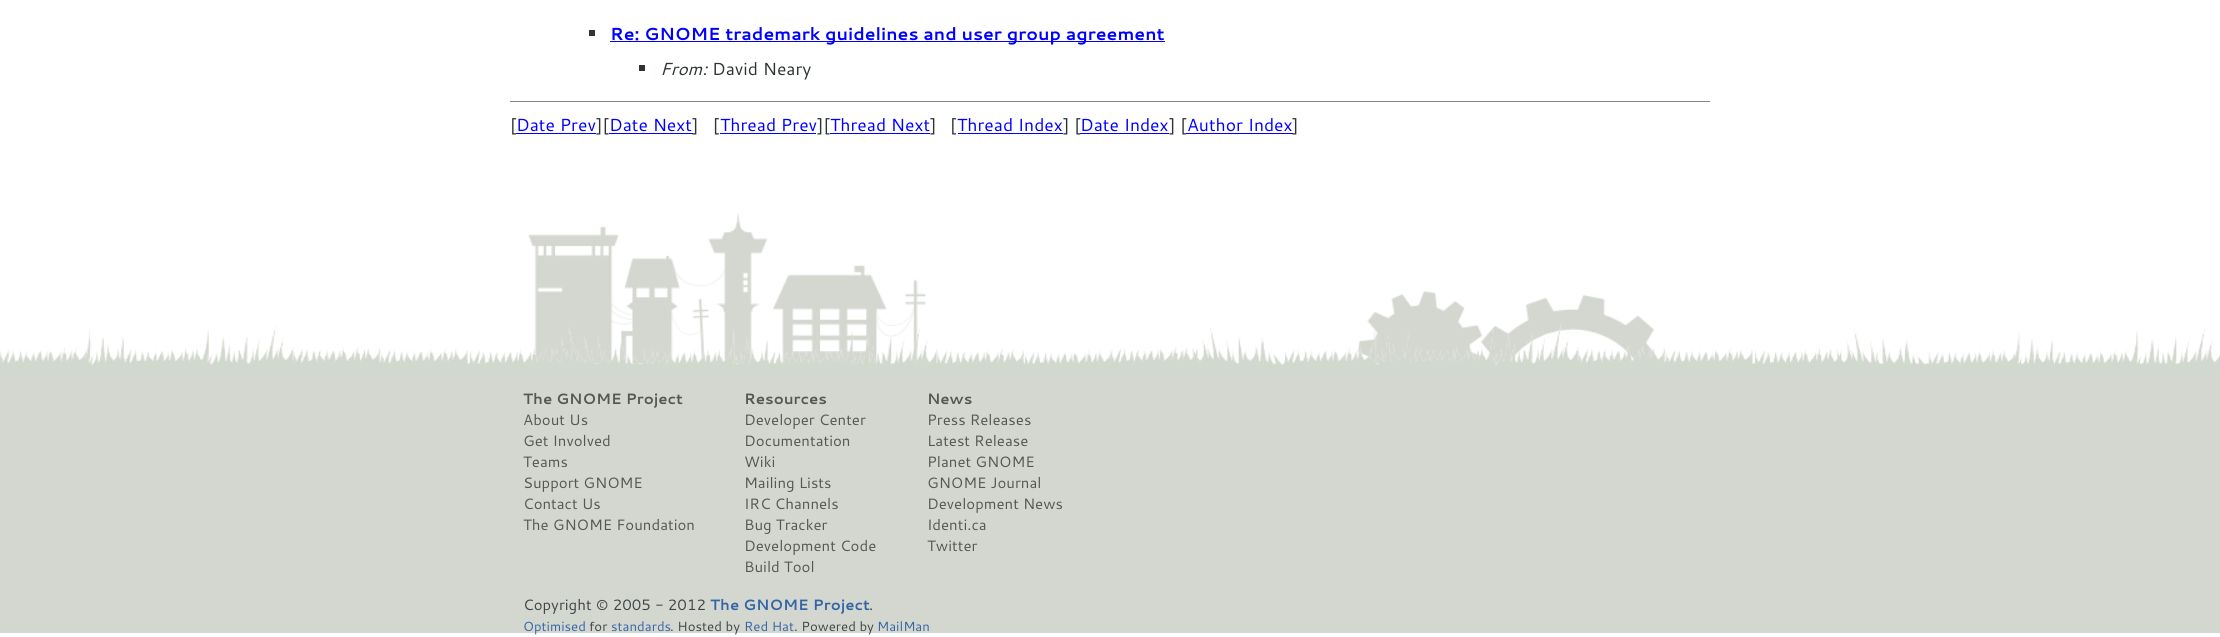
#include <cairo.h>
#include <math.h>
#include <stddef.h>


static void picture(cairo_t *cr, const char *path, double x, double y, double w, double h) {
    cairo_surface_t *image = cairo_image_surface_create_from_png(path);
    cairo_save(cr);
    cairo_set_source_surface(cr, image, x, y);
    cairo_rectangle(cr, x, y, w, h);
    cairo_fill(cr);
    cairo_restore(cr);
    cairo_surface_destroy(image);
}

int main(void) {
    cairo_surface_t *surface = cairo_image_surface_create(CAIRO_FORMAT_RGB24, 2220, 637);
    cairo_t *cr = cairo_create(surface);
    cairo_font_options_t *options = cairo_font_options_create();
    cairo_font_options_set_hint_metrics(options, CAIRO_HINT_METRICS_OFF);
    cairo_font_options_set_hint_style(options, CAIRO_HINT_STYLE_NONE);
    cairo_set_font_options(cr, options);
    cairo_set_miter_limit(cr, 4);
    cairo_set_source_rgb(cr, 1, 1, 1);
    cairo_paint(cr);
    cairo_set_source_rgb(cr, 0.18, 0.204, 0.212);
    cairo_rectangle(cr, 589, 30, 6, 6);
    cairo_fill(cr);
    cairo_set_source_rgb(cr, 0, 0, 1);
    cairo_rectangle(cr, 610, 41, 555, 1);
    cairo_fill(cr);
    cairo_select_font_face(cr, "Cantarell", CAIRO_FONT_SLANT_NORMAL, CAIRO_FONT_WEIGHT_BOLD);
    cairo_set_font_size(cr, 17.5);
    cairo_move_to(cr, 610, 40);
    cairo_show_text(cr, "Re: GNOME trademark guidelines and user group agreement");
    cairo_set_source_rgb(cr, 0.18, 0.204, 0.212);
    cairo_rectangle(cr, 639, 65, 6, 6);
    cairo_fill(cr);
    cairo_select_font_face(cr, "Cantarell", CAIRO_FONT_SLANT_ITALIC, CAIRO_FONT_WEIGHT_NORMAL);
    cairo_move_to(cr, 660, 75);
    cairo_show_text(cr, "From:");
    cairo_select_font_face(cr, "Cantarell", CAIRO_FONT_SLANT_NORMAL, CAIRO_FONT_WEIGHT_NORMAL);
    cairo_move_to(cr, 712, 75);
    cairo_show_text(cr, "David Neary");
    cairo_set_source_rgb(cr, 0.533, 0.533, 0.533);
    cairo_rectangle(cr, 510, 101, 1200, 1);
    cairo_fill(cr);
    cairo_set_source_rgb(cr, 0.18, 0.204, 0.212);
    cairo_move_to(cr, 510, 131);
    cairo_show_text(cr, "[");
    cairo_set_source_rgb(cr, 0, 0, 1);
    cairo_move_to(cr, 516, 131);
    cairo_show_text(cr, "Date Prev");
    cairo_rectangle(cr, 516, 133, 80, 1);
    cairo_fill(cr);
    cairo_set_source_rgb(cr, 0.18, 0.204, 0.212);
    cairo_move_to(cr, 596, 131);
    cairo_show_text(cr, "][");
    cairo_set_source_rgb(cr, 0, 0, 1);
    cairo_move_to(cr, 609, 131);
    cairo_show_text(cr, "Date Next");
    cairo_rectangle(cr, 609, 133, 84, 1);
    cairo_fill(cr);
    cairo_set_source_rgb(cr, 0.18, 0.204, 0.212);
    cairo_move_to(cr, 692, 131);
    cairo_show_text(cr, "]   [");
    cairo_set_source_rgb(cr, 0, 0, 1);
    cairo_move_to(cr, 720, 131);
    cairo_show_text(cr, "Thread Prev");
    cairo_rectangle(cr, 720, 133, 96, 1);
    cairo_fill(cr);
    cairo_set_source_rgb(cr, 0.18, 0.204, 0.212);
    cairo_move_to(cr, 817, 131);
    cairo_show_text(cr, "][");
    cairo_set_source_rgb(cr, 0, 0, 1);
    cairo_move_to(cr, 830, 131);
    cairo_show_text(cr, "Thread Next");
    cairo_rectangle(cr, 830, 133, 100, 1);
    cairo_fill(cr);
    cairo_set_source_rgb(cr, 0.18, 0.204, 0.212);
    cairo_move_to(cr, 930, 131);
    cairo_show_text(cr, "]");
    cairo_move_to(cr, 950, 131);
    cairo_show_text(cr, "[");
    cairo_set_source_rgb(cr, 0, 0, 1);
    cairo_move_to(cr, 957, 131);
    cairo_show_text(cr, "Thread Index");
    cairo_rectangle(cr, 958, 133, 105, 1);
    cairo_fill(cr);
    cairo_set_source_rgb(cr, 0.18, 0.204, 0.212);
    cairo_move_to(cr, 1063, 131);
    cairo_show_text(cr, "] [");
    cairo_set_source_rgb(cr, 0, 0, 1);
    cairo_move_to(cr, 1080, 131);
    cairo_show_text(cr, "Date Index");
    cairo_rectangle(cr, 1080, 133, 89, 1);
    cairo_fill(cr);
    cairo_set_source_rgb(cr, 0.18, 0.204, 0.212);
    cairo_move_to(cr, 1169, 131);
    cairo_show_text(cr, "] [");
    cairo_set_source_rgb(cr, 0, 0, 1);
    cairo_move_to(cr, 1187, 131);
    cairo_show_text(cr, "Author Index");
    cairo_rectangle(cr, 1186, 133, 107, 1);
    cairo_fill(cr);
    cairo_set_source_rgb(cr, 0.18, 0.204, 0.212);
    cairo_move_to(cr, 1292, 131);
    cairo_show_text(cr, "]");
    picture(cr, "img1.png", 528, 213, 1149, 151);
    picture(cr, "img2.png", 0, 324, 2220, 47);
    cairo_set_source_rgb(cr, 0.827, 0.843, 0.812);
    cairo_rectangle(cr, 0, 371, 2220, 262);
    cairo_fill(cr);
    cairo_select_font_face(cr, "Cantarell", CAIRO_FONT_SLANT_NORMAL, CAIRO_FONT_WEIGHT_BOLD);
    cairo_set_font_size(cr, 15);
    cairo_set_source_rgb(cr, 0.333, 0.341, 0.325);
    cairo_move_to(cr, 523, 404);
    cairo_show_text(cr, "The GNOME Project");
    cairo_select_font_face(cr, "Cantarell", CAIRO_FONT_SLANT_NORMAL, CAIRO_FONT_WEIGHT_NORMAL);
    cairo_move_to(cr, 523, 425);
    cairo_show_text(cr, "About Us");
    cairo_move_to(cr, 523, 446);
    cairo_show_text(cr, "Get Involved");
    cairo_move_to(cr, 523, 467);
    cairo_show_text(cr, "Teams");
    cairo_move_to(cr, 523, 488);
    cairo_show_text(cr, "Support GNOME");
    cairo_move_to(cr, 523, 509);
    cairo_show_text(cr, "Contact Us");
    cairo_move_to(cr, 523, 530);
    cairo_show_text(cr, "The GNOME Foundation");
    cairo_select_font_face(cr, "Cantarell", CAIRO_FONT_SLANT_NORMAL, CAIRO_FONT_WEIGHT_BOLD);
    cairo_move_to(cr, 744, 404);
    cairo_show_text(cr, "Resources");
    cairo_select_font_face(cr, "Cantarell", CAIRO_FONT_SLANT_NORMAL, CAIRO_FONT_WEIGHT_NORMAL);
    cairo_move_to(cr, 744, 425);
    cairo_show_text(cr, "Developer Center");
    cairo_move_to(cr, 744, 446);
    cairo_show_text(cr, "Documentation");
    cairo_move_to(cr, 744, 467);
    cairo_show_text(cr, "Wiki");
    cairo_move_to(cr, 744, 488);
    cairo_show_text(cr, "Mailing Lists");
    cairo_move_to(cr, 744, 509);
    cairo_show_text(cr, "IRC Channels");
    cairo_move_to(cr, 744, 530);
    cairo_show_text(cr, "Bug Tracker");
    cairo_move_to(cr, 744, 551);
    cairo_show_text(cr, "Development Code");
    cairo_move_to(cr, 744, 572);
    cairo_show_text(cr, "Build Tool");
    cairo_select_font_face(cr, "Cantarell", CAIRO_FONT_SLANT_NORMAL, CAIRO_FONT_WEIGHT_BOLD);
    cairo_move_to(cr, 927, 404);
    cairo_show_text(cr, "News");
    cairo_select_font_face(cr, "Cantarell", CAIRO_FONT_SLANT_NORMAL, CAIRO_FONT_WEIGHT_NORMAL);
    cairo_move_to(cr, 927, 425);
    cairo_show_text(cr, "Press Releases");
    cairo_move_to(cr, 927, 446);
    cairo_show_text(cr, "Latest Release");
    cairo_move_to(cr, 927, 467);
    cairo_show_text(cr, "Planet GNOME");
    cairo_move_to(cr, 927, 488);
    cairo_show_text(cr, "GNOME Journal");
    cairo_move_to(cr, 927, 509);
    cairo_show_text(cr, "Development News");
    cairo_move_to(cr, 927, 530);
    cairo_show_text(cr, "Identi.ca");
    cairo_move_to(cr, 927, 551);
    cairo_show_text(cr, "Twitter");
    cairo_set_source_rgb(cr, 0.247, 0.267, 0.282);
    cairo_move_to(cr, 523, 610);
    cairo_show_text(cr, "Copyright © 2005 - 2012");
    cairo_select_font_face(cr, "Cantarell", CAIRO_FONT_SLANT_NORMAL, CAIRO_FONT_WEIGHT_BOLD);
    cairo_set_source_rgb(cr, 0.204, 0.396, 0.643);
    cairo_move_to(cr, 710, 610);
    cairo_show_text(cr, "The GNOME Project");
    cairo_select_font_face(cr, "Cantarell", CAIRO_FONT_SLANT_NORMAL, CAIRO_FONT_WEIGHT_NORMAL);
    cairo_set_source_rgb(cr, 0.247, 0.267, 0.282);
    cairo_move_to(cr, 869, 610);
    cairo_show_text(cr, ".");
    cairo_set_font_size(cr, 13.25);
    cairo_set_source_rgb(cr, 0.204, 0.396, 0.643);
    cairo_move_to(cr, 523, 631);
    cairo_show_text(cr, "Optimised");
    cairo_set_source_rgb(cr, 0.247, 0.267, 0.282);
    cairo_move_to(cr, 589, 631);
    cairo_show_text(cr, "for");
    cairo_set_source_rgb(cr, 0.204, 0.396, 0.643);
    cairo_move_to(cr, 611, 631);
    cairo_show_text(cr, "standards");
    cairo_set_source_rgb(cr, 0.247, 0.267, 0.282);
    cairo_move_to(cr, 670, 631);
    cairo_show_text(cr, ". Hosted by");
    cairo_set_source_rgb(cr, 0.204, 0.396, 0.643);
    cairo_move_to(cr, 744, 631);
    cairo_show_text(cr, "Red Hat");
    cairo_set_source_rgb(cr, 0.247, 0.267, 0.282);
    cairo_move_to(cr, 794, 631);
    cairo_show_text(cr, ". Powered by");
    cairo_set_source_rgb(cr, 0.204, 0.396, 0.643);
    cairo_move_to(cr, 877, 631);
    cairo_show_text(cr, "MailMan");
    cairo_surface_write_to_png(surface, "page.png");
    cairo_font_options_destroy(options);
    cairo_destroy(cr);
    cairo_surface_destroy(surface);
    return 0;
}
